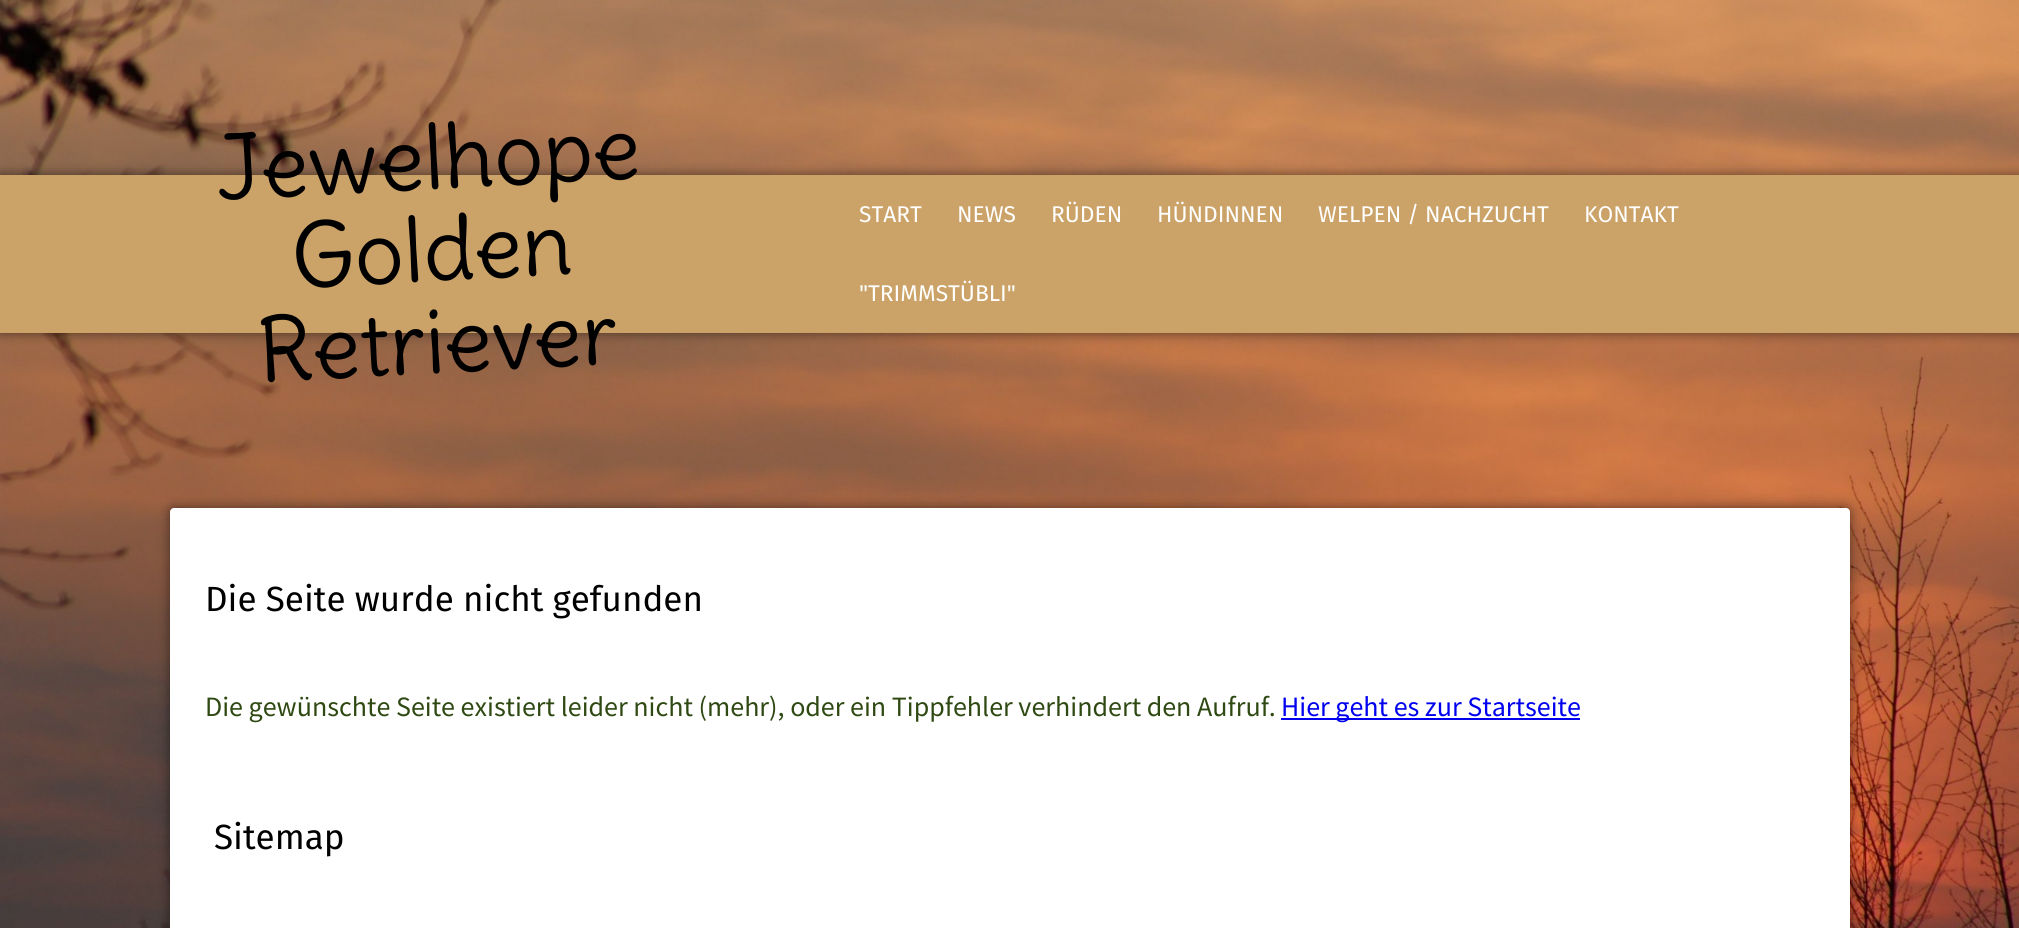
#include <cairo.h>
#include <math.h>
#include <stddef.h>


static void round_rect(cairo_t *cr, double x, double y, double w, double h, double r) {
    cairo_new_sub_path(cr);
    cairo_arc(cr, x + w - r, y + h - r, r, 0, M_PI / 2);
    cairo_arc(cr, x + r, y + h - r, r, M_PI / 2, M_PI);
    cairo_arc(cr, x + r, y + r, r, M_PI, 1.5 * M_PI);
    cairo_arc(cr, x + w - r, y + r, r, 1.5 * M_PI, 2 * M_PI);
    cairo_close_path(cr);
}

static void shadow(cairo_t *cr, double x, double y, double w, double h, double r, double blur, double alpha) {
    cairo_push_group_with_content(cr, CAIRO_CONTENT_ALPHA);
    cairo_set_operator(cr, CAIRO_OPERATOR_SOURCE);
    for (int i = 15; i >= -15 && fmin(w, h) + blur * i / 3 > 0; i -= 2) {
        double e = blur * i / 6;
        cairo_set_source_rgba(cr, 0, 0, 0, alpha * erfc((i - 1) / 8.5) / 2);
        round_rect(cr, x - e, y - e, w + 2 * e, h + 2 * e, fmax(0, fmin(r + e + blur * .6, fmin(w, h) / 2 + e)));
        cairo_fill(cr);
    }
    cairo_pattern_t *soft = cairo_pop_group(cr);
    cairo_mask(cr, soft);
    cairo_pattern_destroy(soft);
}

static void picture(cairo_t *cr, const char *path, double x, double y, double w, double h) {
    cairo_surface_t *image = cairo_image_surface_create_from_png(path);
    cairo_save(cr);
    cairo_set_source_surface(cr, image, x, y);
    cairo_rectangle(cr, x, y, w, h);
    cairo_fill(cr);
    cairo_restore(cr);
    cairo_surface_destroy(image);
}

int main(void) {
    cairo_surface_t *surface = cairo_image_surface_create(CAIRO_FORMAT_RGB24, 2019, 928);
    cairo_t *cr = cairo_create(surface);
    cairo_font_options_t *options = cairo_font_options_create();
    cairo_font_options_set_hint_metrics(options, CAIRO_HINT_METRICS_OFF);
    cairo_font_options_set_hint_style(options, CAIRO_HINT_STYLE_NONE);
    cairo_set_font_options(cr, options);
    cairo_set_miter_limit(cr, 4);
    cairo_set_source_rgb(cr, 1, 1, 1);
    cairo_paint(cr);
    picture(cr, "img1.png", 0, 0, 2019, 928);
    cairo_set_source_rgb(cr, 0, 0, 0);
    shadow(cr, 0, 175, 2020, 158, 0, 6, 0.5);
    cairo_set_source_rgb(cr, 0.796, 0.639, 0.408);
    cairo_rectangle(cr, 0, 175, 2019, 158);
    cairo_fill(cr);
    cairo_select_font_face(cr, "Delius", CAIRO_FONT_SLANT_NORMAL, CAIRO_FONT_WEIGHT_NORMAL);
    cairo_set_font_size(cr, 87.5);
    cairo_set_source_rgb(cr, 0, 0, 0);
    cairo_save(cr);
    cairo_translate(cr, 217, 200);
    cairo_rotate(cr, -3 * M_PI / 180);
    cairo_move_to(cr, 0, 0);
    cairo_show_text(cr, "Jewelhope");
    cairo_restore(cr);
    cairo_save(cr);
    cairo_translate(cr, 293, 288);
    cairo_rotate(cr, -3 * M_PI / 180);
    cairo_move_to(cr, 0, 0);
    cairo_show_text(cr, "Golden");
    cairo_restore(cr);
    cairo_save(cr);
    cairo_translate(cr, 259, 382);
    cairo_rotate(cr, -3 * M_PI / 180);
    cairo_move_to(cr, 0, 0);
    cairo_show_text(cr, "Retriever");
    cairo_restore(cr);
    cairo_select_font_face(cr, "Fira Sans", CAIRO_FONT_SLANT_NORMAL, CAIRO_FONT_WEIGHT_NORMAL);
    cairo_set_font_size(cr, 22.75);
    cairo_set_source_rgb(cr, 1, 1, 1);
    cairo_move_to(cr, 859, 222);
    cairo_show_text(cr, "START");
    cairo_move_to(cr, 957, 222);
    cairo_show_text(cr, "NEWS");
    cairo_move_to(cr, 1051, 222);
    cairo_show_text(cr, "RÜDEN");
    cairo_move_to(cr, 1157, 222);
    cairo_show_text(cr, "HÜNDINNEN");
    cairo_move_to(cr, 1318, 222);
    cairo_show_text(cr, "WELPEN / NACHZUCHT");
    cairo_move_to(cr, 1584, 222);
    cairo_show_text(cr, "KONTAKT");
    cairo_move_to(cr, 859, 301);
    cairo_show_text(cr, "\"TRIMMSTÜBLI\"");
    cairo_set_source_rgb(cr, 0, 0, 0);
    shadow(cr, 170, 508, 1680, 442, 4, 6, 0.5);
    cairo_set_source_rgb(cr, 1, 1, 1);
    round_rect(cr, 170, 508, 1680, 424, 4);
    cairo_fill(cr);
    cairo_set_font_size(cr, 35);
    cairo_set_source_rgb(cr, 0, 0, 0);
    cairo_move_to(cr, 205, 611);
    cairo_show_text(cr, "Die Seite wurde nicht gefunden");
    cairo_select_font_face(cr, "Source Sans Pro", CAIRO_FONT_SLANT_NORMAL, CAIRO_FONT_WEIGHT_NORMAL);
    cairo_set_font_size(cr, 28);
    cairo_set_source_rgb(cr, 0.184, 0.286, 0.075);
    cairo_move_to(cr, 205, 716);
    cairo_show_text(cr, "Die gewünschte Seite existiert leider nicht (mehr), oder ein Tippfehler verhindert den Aufruf.");
    cairo_set_source_rgb(cr, 0, 0, 0.933);
    cairo_rectangle(cr, 1281, 718, 299, 2);
    cairo_fill(cr);
    cairo_move_to(cr, 1281, 716);
    cairo_show_text(cr, "Hier geht es zur Startseite");
    cairo_select_font_face(cr, "Fira Sans", CAIRO_FONT_SLANT_NORMAL, CAIRO_FONT_WEIGHT_NORMAL);
    cairo_set_font_size(cr, 35);
    cairo_set_source_rgb(cr, 0, 0, 0);
    cairo_move_to(cr, 214, 849);
    cairo_show_text(cr, "Sitemap");
    cairo_surface_write_to_png(surface, "page.png");
    cairo_font_options_destroy(options);
    cairo_destroy(cr);
    cairo_surface_destroy(surface);
    return 0;
}
